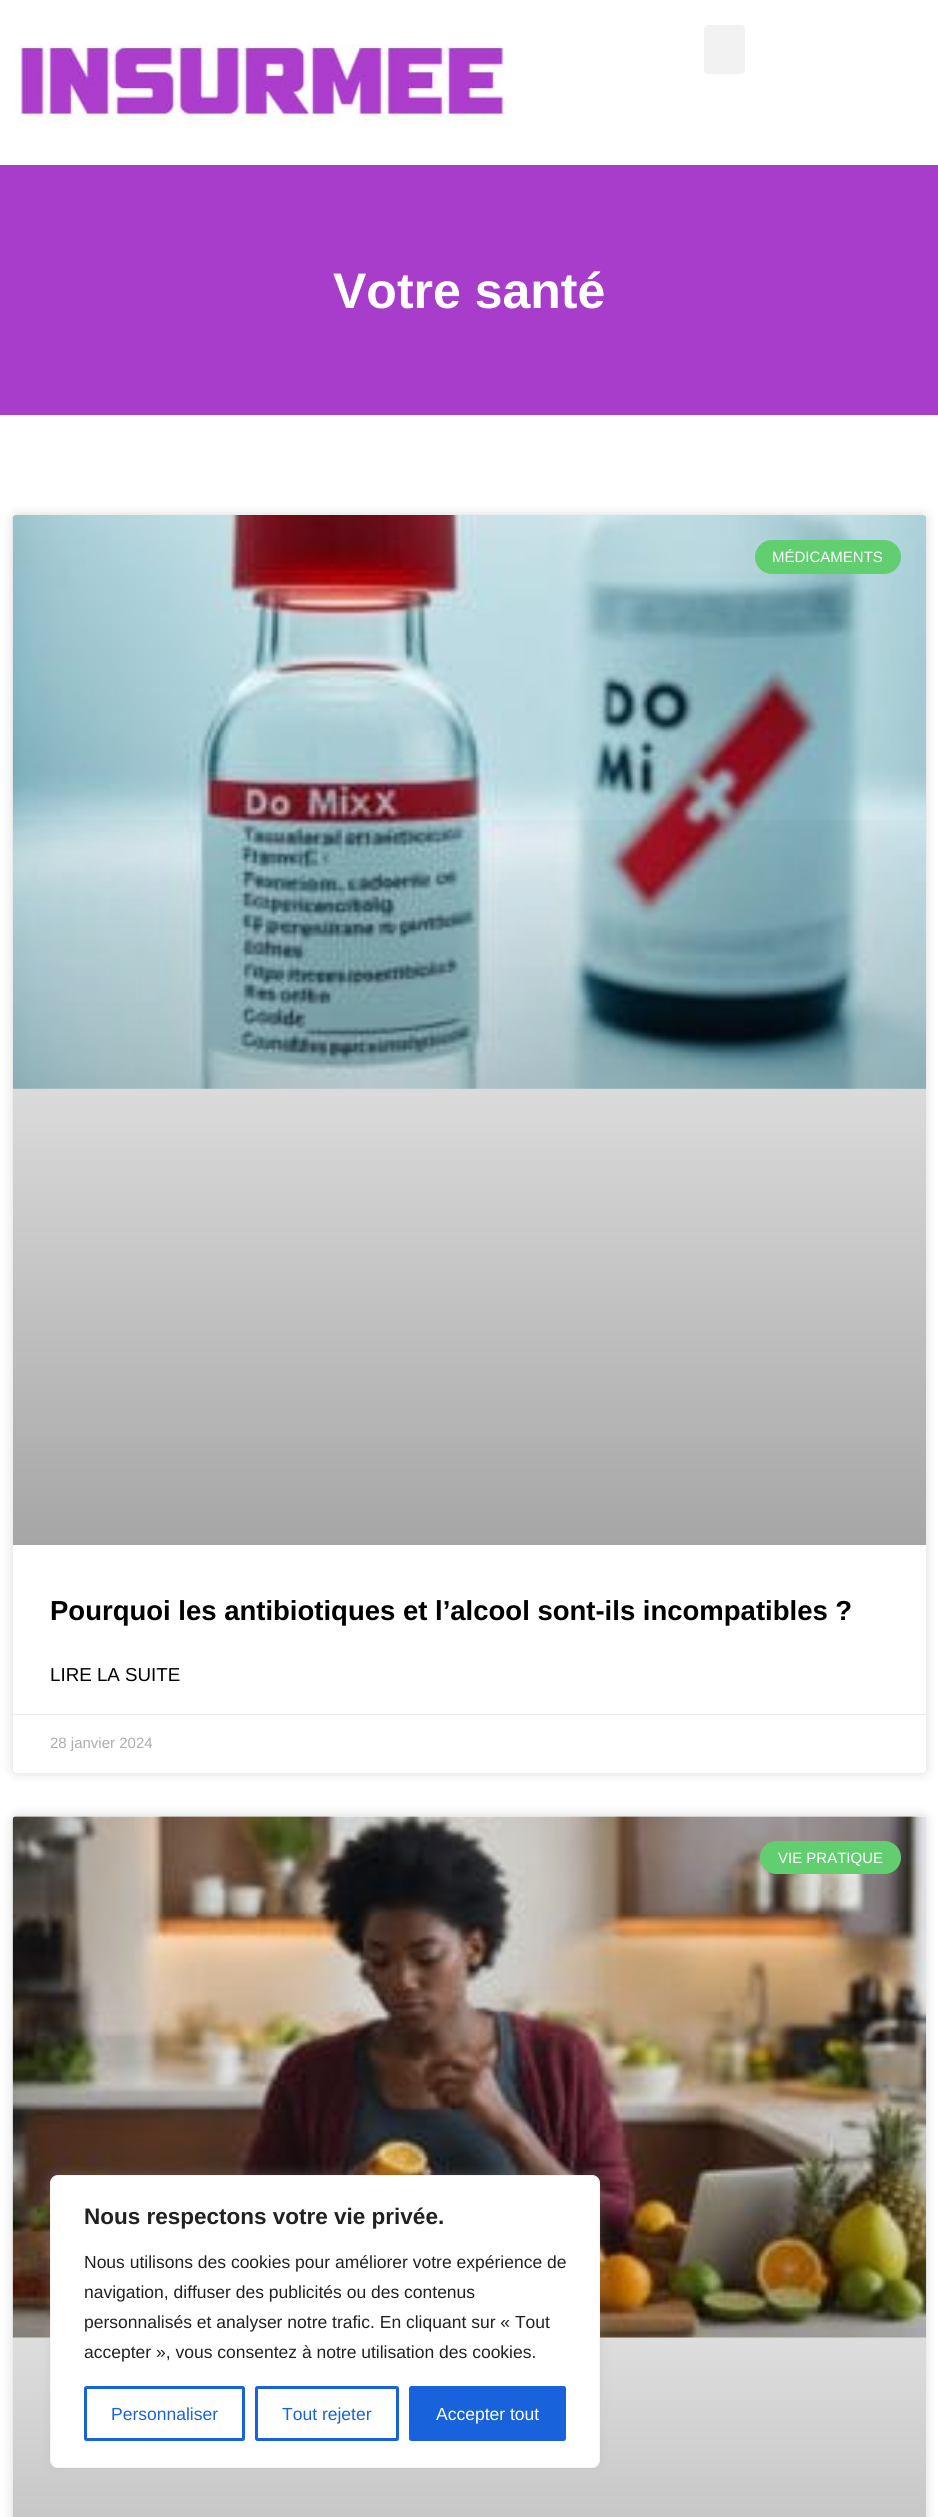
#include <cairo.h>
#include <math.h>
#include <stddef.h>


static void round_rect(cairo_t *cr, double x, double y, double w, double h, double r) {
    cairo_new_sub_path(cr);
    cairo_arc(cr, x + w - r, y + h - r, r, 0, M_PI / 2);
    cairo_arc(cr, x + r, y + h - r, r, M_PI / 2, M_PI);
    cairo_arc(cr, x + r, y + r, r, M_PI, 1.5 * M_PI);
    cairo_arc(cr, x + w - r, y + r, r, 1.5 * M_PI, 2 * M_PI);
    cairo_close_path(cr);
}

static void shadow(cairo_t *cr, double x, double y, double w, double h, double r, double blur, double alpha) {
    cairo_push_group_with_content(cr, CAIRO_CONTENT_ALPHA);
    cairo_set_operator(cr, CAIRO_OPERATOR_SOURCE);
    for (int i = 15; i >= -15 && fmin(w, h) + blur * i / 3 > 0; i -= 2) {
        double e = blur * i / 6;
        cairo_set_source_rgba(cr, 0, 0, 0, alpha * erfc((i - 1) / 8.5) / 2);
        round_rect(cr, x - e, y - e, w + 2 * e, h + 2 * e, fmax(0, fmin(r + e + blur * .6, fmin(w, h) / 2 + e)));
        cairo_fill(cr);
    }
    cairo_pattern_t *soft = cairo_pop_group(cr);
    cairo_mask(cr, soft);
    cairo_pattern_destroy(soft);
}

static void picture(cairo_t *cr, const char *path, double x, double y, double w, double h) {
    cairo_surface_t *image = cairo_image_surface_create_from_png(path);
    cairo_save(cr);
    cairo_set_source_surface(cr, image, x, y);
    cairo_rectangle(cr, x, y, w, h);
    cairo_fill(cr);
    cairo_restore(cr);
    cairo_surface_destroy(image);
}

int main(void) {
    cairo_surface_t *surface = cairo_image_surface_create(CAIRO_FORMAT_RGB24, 938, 2517);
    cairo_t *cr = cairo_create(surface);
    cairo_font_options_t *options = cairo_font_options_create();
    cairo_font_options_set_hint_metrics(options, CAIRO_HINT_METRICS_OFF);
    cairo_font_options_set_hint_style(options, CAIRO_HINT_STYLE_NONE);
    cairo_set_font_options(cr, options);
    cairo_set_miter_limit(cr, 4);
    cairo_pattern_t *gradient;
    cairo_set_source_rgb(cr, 1, 1, 1);
    cairo_paint(cr);
    picture(cr, "img1.png", 18, 44, 486, 79);
    cairo_set_source_rgb(cr, 0.949, 0.949, 0.949);
    round_rect(cr, 704, 25, 41, 49, 4);
    cairo_fill(cr);
    cairo_set_source_rgb(cr, 0.659, 0.235, 0.796);
    cairo_rectangle(cr, 0, 165, 938, 250);
    cairo_fill(cr);
    cairo_select_font_face(cr, "Liberation Sans", CAIRO_FONT_SLANT_NORMAL, CAIRO_FONT_WEIGHT_BOLD);
    cairo_set_font_size(cr, 50);
    cairo_set_source_rgb(cr, 1, 1, 1);
    cairo_move_to(cr, 333, 308);
    cairo_show_text(cr, "Votre santé");
    cairo_set_source_rgb(cr, 0, 0, 0);
    shadow(cr, 13, 515, 913, 1258, 4, 6, 0.15);
    cairo_set_source_rgb(cr, 1, 1, 1);
    round_rect(cr, 13, 515, 913, 1258, 4);
    cairo_fill(cr);
    picture(cr, "img2.png", 12, 515, 915, 574);
    gradient = cairo_pattern_create_linear(469, 1545, 469, 515);
    cairo_pattern_add_color_stop_rgba(gradient, 0, 0, 0, 0, 0.35);
    cairo_pattern_add_color_stop_rgba(gradient, 0.75, 0, 0, 0, 0);
    cairo_set_source(cr, gradient);
    cairo_pattern_destroy(gradient);
    cairo_rectangle(cr, 13, 820, 913, 725);
    cairo_fill(cr);
    cairo_set_source_rgb(cr, 0.38, 0.808, 0.439);
    round_rect(cr, 755, 540, 146, 34, 17);
    cairo_fill(cr);
    cairo_select_font_face(cr, "Liberation Sans", CAIRO_FONT_SLANT_NORMAL, CAIRO_FONT_WEIGHT_NORMAL);
    cairo_set_font_size(cr, 15);
    cairo_set_source_rgb(cr, 1, 1, 1);
    cairo_move_to(cr, 772, 562);
    cairo_show_text(cr, "MÉDICAMENTS");
    cairo_select_font_face(cr, "Liberation Sans", CAIRO_FONT_SLANT_NORMAL, CAIRO_FONT_WEIGHT_BOLD);
    cairo_set_font_size(cr, 27.5);
    cairo_set_source_rgb(cr, 0, 0, 0);
    cairo_move_to(cr, 50, 1620);
    cairo_show_text(cr, "Pourquoi les antibiotiques et l’alcool sont-ils incompatibles ?");
    cairo_select_font_face(cr, "Liberation Sans", CAIRO_FONT_SLANT_NORMAL, CAIRO_FONT_WEIGHT_NORMAL);
    cairo_set_font_size(cr, 18.75);
    cairo_move_to(cr, 50, 1681);
    cairo_show_text(cr, "LIRE LA SUITE");
    cairo_set_source_rgb(cr, 0.918, 0.918, 0.918);
    cairo_rectangle(cr, 13, 1714, 913, 1);
    cairo_fill(cr);
    cairo_set_font_size(cr, 15);
    cairo_set_source_rgb(cr, 0.678, 0.678, 0.678);
    cairo_move_to(cr, 50, 1748);
    cairo_show_text(cr, "28 janvier 2024");
    cairo_set_source_rgb(cr, 0, 0, 0);
    shadow(cr, 13, 1816, 913, 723, 4, 6, 0.15);
    cairo_set_source_rgb(cr, 1, 1, 1);
    round_rect(cr, 13, 1816, 913, 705, 4);
    cairo_fill(cr);
    picture(cr, "img3.png", 12, 1816, 915, 522);
    gradient = cairo_pattern_create_linear(469, 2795, 469, 1816);
    cairo_pattern_add_color_stop_rgba(gradient, 0, 0, 0, 0, 0.35);
    cairo_pattern_add_color_stop_rgba(gradient, 0.75, 0, 0, 0, 0);
    cairo_set_source(cr, gradient);
    cairo_pattern_destroy(gradient);
    cairo_rectangle(cr, 13, 2106, 913, 411);
    cairo_fill(cr);
    cairo_set_source_rgb(cr, 0.38, 0.808, 0.439);
    round_rect(cr, 760, 1841, 141, 33, 16.5);
    cairo_fill(cr);
    cairo_set_source_rgb(cr, 1, 1, 1);
    cairo_move_to(cr, 778, 1863);
    cairo_show_text(cr, "VIE PRATIQUE");
    cairo_set_source_rgb(cr, 0.675, 0.671, 0.671);
    shadow(cr, 50, 2174, 550, 292, 8, 6, 0.3);
    cairo_set_source_rgb(cr, 1, 1, 1);
    round_rect(cr, 50.5, 2175.5, 549, 292, 7.5);
    cairo_fill_preserve(cr);
    cairo_set_source_rgb(cr, 0.957, 0.957, 0.957);
    cairo_set_line_width(cr, 1);
    cairo_stroke(cr);
    cairo_select_font_face(cr, "Liberation Sans", CAIRO_FONT_SLANT_NORMAL, CAIRO_FONT_WEIGHT_BOLD);
    cairo_set_font_size(cr, 22.5);
    cairo_set_source_rgb(cr, 0.129, 0.129, 0.129);
    cairo_move_to(cr, 84, 2224);
    cairo_show_text(cr, "Nous respectons votre vie privée.");
    cairo_select_font_face(cr, "Liberation Sans", CAIRO_FONT_SLANT_NORMAL, CAIRO_FONT_WEIGHT_NORMAL);
    cairo_set_font_size(cr, 17.5);
    cairo_move_to(cr, 84, 2268);
    cairo_show_text(cr, "Nous utilisons des cookies pour améliorer votre expérience de");
    cairo_move_to(cr, 84, 2298);
    cairo_show_text(cr, "navigation, diffuser des publicités ou des contenus");
    cairo_move_to(cr, 84, 2328);
    cairo_show_text(cr, "personnalisés et analyser notre trafic. En cliquant sur « Tout");
    cairo_move_to(cr, 84, 2358);
    cairo_show_text(cr, "accepter », vous consentez à notre utilisation des cookies.");
    round_rect(cr, 85.5, 2387.5, 158, 52, 1);
    cairo_set_source_rgb(cr, 0.094, 0.388, 0.863);
    cairo_set_line_width(cr, 3);
    cairo_stroke(cr);
    cairo_move_to(cr, 111, 2420);
    cairo_show_text(cr, "Personnaliser");
    round_rect(cr, 256.5, 2387.5, 141, 52, 1);
    cairo_stroke(cr);
    cairo_move_to(cr, 282, 2420);
    cairo_show_text(cr, "Tout rejeter");
    round_rect(cr, 410.5, 2387.5, 154, 52, 1);
    cairo_fill_preserve(cr);
    cairo_stroke(cr);
    cairo_set_source_rgb(cr, 1, 1, 1);
    cairo_move_to(cr, 436, 2420);
    cairo_show_text(cr, "Accepter tout");
    cairo_surface_write_to_png(surface, "page.png");
    cairo_font_options_destroy(options);
    cairo_destroy(cr);
    cairo_surface_destroy(surface);
    return 0;
}
